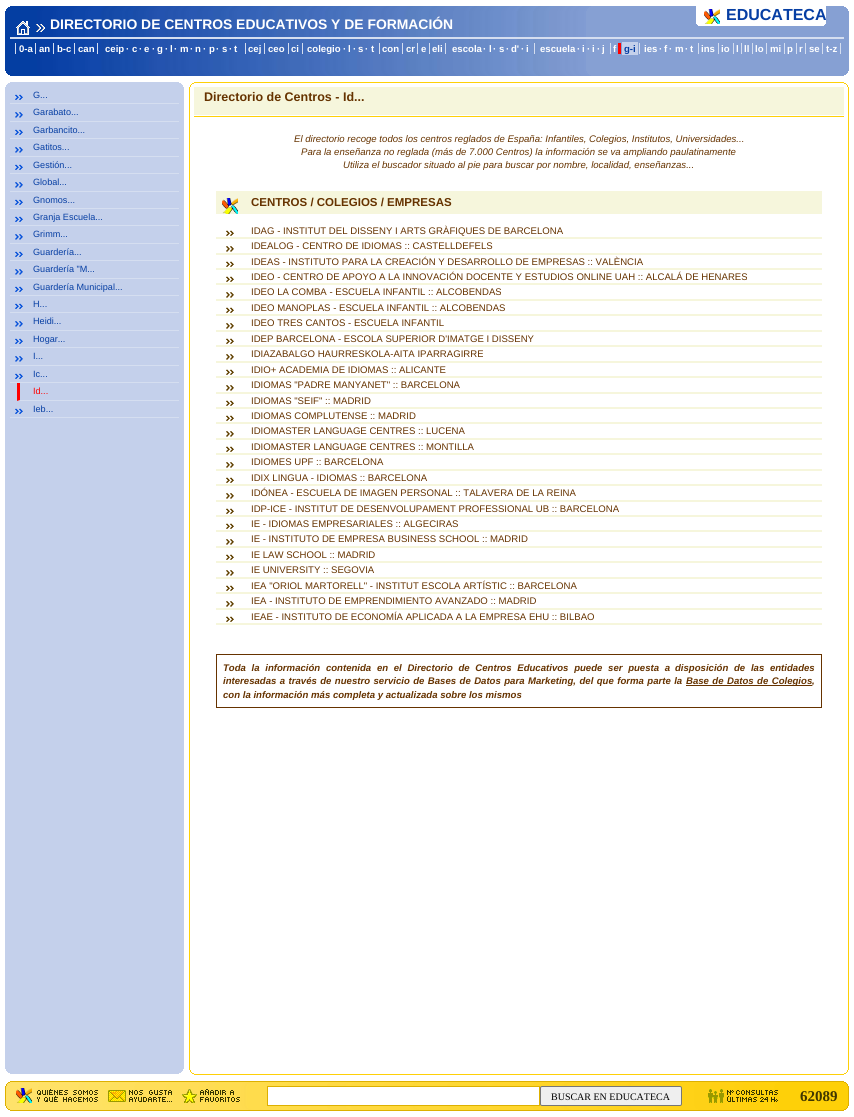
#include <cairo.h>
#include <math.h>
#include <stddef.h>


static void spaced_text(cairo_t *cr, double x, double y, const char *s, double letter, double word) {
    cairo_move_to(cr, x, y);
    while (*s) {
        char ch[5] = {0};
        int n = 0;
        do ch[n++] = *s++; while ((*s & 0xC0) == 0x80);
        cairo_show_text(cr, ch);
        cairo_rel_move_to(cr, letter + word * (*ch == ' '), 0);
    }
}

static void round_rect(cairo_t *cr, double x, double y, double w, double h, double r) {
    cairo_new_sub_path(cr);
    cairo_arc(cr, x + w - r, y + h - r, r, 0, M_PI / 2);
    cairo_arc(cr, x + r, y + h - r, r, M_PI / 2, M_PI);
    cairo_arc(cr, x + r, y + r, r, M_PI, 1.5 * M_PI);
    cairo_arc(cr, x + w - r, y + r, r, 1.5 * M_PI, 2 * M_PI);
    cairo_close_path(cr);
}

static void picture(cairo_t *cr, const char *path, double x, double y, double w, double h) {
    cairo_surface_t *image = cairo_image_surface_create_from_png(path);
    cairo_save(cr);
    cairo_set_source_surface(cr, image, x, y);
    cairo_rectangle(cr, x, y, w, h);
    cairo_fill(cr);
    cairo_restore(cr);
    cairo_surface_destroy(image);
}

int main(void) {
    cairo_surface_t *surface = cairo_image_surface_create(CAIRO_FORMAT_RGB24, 854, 1117);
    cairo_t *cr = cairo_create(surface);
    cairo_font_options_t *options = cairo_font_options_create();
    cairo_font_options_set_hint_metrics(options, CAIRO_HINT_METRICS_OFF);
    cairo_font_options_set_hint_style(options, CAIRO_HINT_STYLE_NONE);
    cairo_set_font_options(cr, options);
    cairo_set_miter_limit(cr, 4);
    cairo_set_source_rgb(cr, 1, 1, 1);
    cairo_paint(cr);
    cairo_set_source_rgb(cr, 0.525, 0.627, 0.827);
    cairo_rectangle(cr, 591, 6, 253, 1);
    cairo_fill(cr);
    picture(cr, "img1.png", 10, 6, 581, 1);
    cairo_rectangle(cr, 589, 7, 257, 1);
    cairo_fill(cr);
    picture(cr, "img1.png", 8, 7, 581, 1);
    cairo_rectangle(cr, 588, 8, 259, 1);
    cairo_fill(cr);
    picture(cr, "img1.png", 7, 8, 581, 1);
    cairo_rectangle(cr, 587, 9, 261, 2);
    cairo_fill(cr);
    picture(cr, "img2.png", 6, 9, 581, 2);
    cairo_rectangle(cr, 586, 11, 263, 60);
    cairo_fill(cr);
    cairo_set_source_rgb(cr, 1, 1, 1);
    cairo_rectangle(cr, 696, 6, 130, 18);
    cairo_fill(cr);
    picture(cr, "img3.png", 704, 9, 16, 15);
    cairo_select_font_face(cr, "Liberation Sans", CAIRO_FONT_SLANT_NORMAL, CAIRO_FONT_WEIGHT_BOLD);
    cairo_set_font_size(cr, 16);
    cairo_set_source_rgb(cr, 0.027, 0.243, 0.639);
    cairo_move_to(cr, 726, 20);
    cairo_show_text(cr, "EDUCATECA");
    cairo_set_source_rgb(cr, 1, 1, 1);
    cairo_rectangle(cr, 697, 24, 128, 1);
    cairo_fill(cr);
    cairo_rectangle(cr, 698, 25, 126, 1);
    cairo_fill(cr);
    picture(cr, "img5.png", 5, 11, 581, 60);
    picture(cr, "img4.png", 16, 21, 29, 14);
    cairo_set_source_rgb(cr, 0.835, 0.871, 0.941);
    cairo_rectangle(cr, 10, 37, 834, 2);
    cairo_fill(cr);
    cairo_set_font_size(cr, 13.9);
    cairo_set_source_rgb(cr, 1, 1, 1);
    cairo_move_to(cr, 50, 29);
    cairo_show_text(cr, "DIRECTORIO DE CENTROS EDUCATIVOS Y DE FORMACIÓN");
    cairo_set_source_rgb(cr, 0.835, 0.871, 0.941);
    cairo_rectangle(cr, 840, 43, 1, 11);
    cairo_fill(cr);
    cairo_rectangle(cr, 15, 43, 1, 11);
    cairo_fill(cr);
    cairo_set_font_size(cr, 9.6);
    cairo_set_source_rgb(cr, 1, 1, 1);
    cairo_move_to(cr, 19, 52);
    cairo_show_text(cr, "0-a");
    cairo_set_source_rgb(cr, 0.835, 0.871, 0.941);
    cairo_rectangle(cr, 35, 43, 1, 11);
    cairo_fill(cr);
    cairo_set_source_rgb(cr, 1, 1, 1);
    cairo_move_to(cr, 39, 52);
    cairo_show_text(cr, "an");
    cairo_set_source_rgb(cr, 0.835, 0.871, 0.941);
    cairo_rectangle(cr, 53, 43, 1, 11);
    cairo_fill(cr);
    cairo_set_source_rgb(cr, 1, 1, 1);
    cairo_move_to(cr, 57, 52);
    cairo_show_text(cr, "b-c");
    cairo_set_source_rgb(cr, 0.835, 0.871, 0.941);
    cairo_rectangle(cr, 74, 43, 1, 11);
    cairo_fill(cr);
    cairo_set_source_rgb(cr, 1, 1, 1);
    cairo_move_to(cr, 78, 52);
    cairo_show_text(cr, "can");
    cairo_set_source_rgb(cr, 0.835, 0.871, 0.941);
    cairo_rectangle(cr, 97, 43, 1, 11);
    cairo_fill(cr);
    cairo_set_source_rgb(cr, 1, 1, 1);
    cairo_move_to(cr, 105, 52);
    cairo_show_text(cr, "ceip");
    cairo_move_to(cr, 126, 52);
    cairo_show_text(cr, "·");
    cairo_move_to(cr, 132, 52);
    cairo_show_text(cr, "c");
    cairo_move_to(cr, 139, 52);
    cairo_show_text(cr, "·");
    cairo_move_to(cr, 144, 52);
    cairo_show_text(cr, "e");
    cairo_move_to(cr, 152, 52);
    cairo_show_text(cr, "·");
    cairo_move_to(cr, 157, 52);
    cairo_show_text(cr, "g");
    cairo_move_to(cr, 165, 52);
    cairo_show_text(cr, "·");
    cairo_move_to(cr, 170, 52);
    cairo_show_text(cr, "l");
    cairo_move_to(cr, 174, 52);
    cairo_show_text(cr, "·");
    cairo_move_to(cr, 180, 52);
    cairo_show_text(cr, "m");
    cairo_move_to(cr, 190, 52);
    cairo_show_text(cr, "·");
    cairo_move_to(cr, 195, 52);
    cairo_show_text(cr, "n");
    cairo_move_to(cr, 203, 52);
    cairo_show_text(cr, "·");
    cairo_move_to(cr, 209, 52);
    cairo_show_text(cr, "p");
    cairo_move_to(cr, 216, 52);
    cairo_show_text(cr, "·");
    cairo_move_to(cr, 222, 52);
    cairo_show_text(cr, "s");
    cairo_move_to(cr, 229, 52);
    cairo_show_text(cr, "·");
    cairo_move_to(cr, 234, 52);
    cairo_show_text(cr, "t");
    cairo_set_source_rgb(cr, 0.835, 0.871, 0.941);
    cairo_rectangle(cr, 245, 43, 1, 11);
    cairo_fill(cr);
    cairo_set_source_rgb(cr, 1, 1, 1);
    cairo_move_to(cr, 248, 52);
    cairo_show_text(cr, "cej");
    cairo_set_source_rgb(cr, 0.835, 0.871, 0.941);
    cairo_rectangle(cr, 264, 43, 1, 11);
    cairo_fill(cr);
    cairo_set_source_rgb(cr, 1, 1, 1);
    cairo_move_to(cr, 268, 52);
    cairo_show_text(cr, "ceo");
    cairo_set_source_rgb(cr, 0.835, 0.871, 0.941);
    cairo_rectangle(cr, 288, 43, 1, 11);
    cairo_fill(cr);
    cairo_set_source_rgb(cr, 1, 1, 1);
    cairo_move_to(cr, 291, 52);
    cairo_show_text(cr, "ci");
    cairo_set_source_rgb(cr, 0.835, 0.871, 0.941);
    cairo_rectangle(cr, 302, 43, 1, 11);
    cairo_fill(cr);
    cairo_set_source_rgb(cr, 1, 1, 1);
    cairo_move_to(cr, 307, 52);
    cairo_show_text(cr, "colegio");
    cairo_move_to(cr, 343, 52);
    cairo_show_text(cr, "·");
    cairo_move_to(cr, 348, 52);
    cairo_show_text(cr, "l");
    cairo_move_to(cr, 353, 52);
    cairo_show_text(cr, "·");
    cairo_move_to(cr, 358, 52);
    cairo_show_text(cr, "s");
    cairo_move_to(cr, 365, 52);
    cairo_show_text(cr, "·");
    cairo_move_to(cr, 371, 52);
    cairo_show_text(cr, "t");
    cairo_set_source_rgb(cr, 0.835, 0.871, 0.941);
    cairo_rectangle(cr, 379, 43, 1, 11);
    cairo_fill(cr);
    cairo_set_source_rgb(cr, 1, 1, 1);
    cairo_move_to(cr, 382, 52);
    cairo_show_text(cr, "con");
    cairo_set_source_rgb(cr, 0.835, 0.871, 0.941);
    cairo_rectangle(cr, 402, 43, 1, 11);
    cairo_fill(cr);
    cairo_set_source_rgb(cr, 1, 1, 1);
    cairo_move_to(cr, 406, 52);
    cairo_show_text(cr, "cr");
    cairo_set_source_rgb(cr, 0.835, 0.871, 0.941);
    cairo_rectangle(cr, 417, 43, 1, 11);
    cairo_fill(cr);
    cairo_set_source_rgb(cr, 1, 1, 1);
    cairo_move_to(cr, 421, 52);
    cairo_show_text(cr, "e");
    cairo_set_source_rgb(cr, 0.835, 0.871, 0.941);
    cairo_rectangle(cr, 429, 43, 1, 11);
    cairo_fill(cr);
    cairo_set_source_rgb(cr, 1, 1, 1);
    cairo_move_to(cr, 432, 52);
    cairo_show_text(cr, "eli");
    cairo_set_source_rgb(cr, 0.835, 0.871, 0.941);
    cairo_rectangle(cr, 445, 43, 1, 11);
    cairo_fill(cr);
    cairo_set_source_rgb(cr, 1, 1, 1);
    cairo_move_to(cr, 452, 52);
    cairo_show_text(cr, "escola");
    cairo_move_to(cr, 483, 52);
    cairo_show_text(cr, "·");
    cairo_move_to(cr, 489, 52);
    cairo_show_text(cr, "l");
    cairo_move_to(cr, 493, 52);
    cairo_show_text(cr, "·");
    cairo_move_to(cr, 499, 52);
    cairo_show_text(cr, "s");
    cairo_move_to(cr, 506, 52);
    cairo_show_text(cr, "·");
    cairo_move_to(cr, 511, 52);
    cairo_show_text(cr, "d'");
    cairo_move_to(cr, 521, 52);
    cairo_show_text(cr, "·");
    cairo_move_to(cr, 526, 52);
    cairo_show_text(cr, "i");
    cairo_set_source_rgb(cr, 0.835, 0.871, 0.941);
    cairo_rectangle(cr, 534, 43, 1, 11);
    cairo_fill(cr);
    cairo_set_source_rgb(cr, 1, 1, 1);
    cairo_move_to(cr, 540, 52);
    cairo_show_text(cr, "escuela");
    cairo_move_to(cr, 577, 52);
    cairo_show_text(cr, "·");
    cairo_move_to(cr, 582, 52);
    cairo_show_text(cr, "i");
    cairo_move_to(cr, 587, 52);
    cairo_show_text(cr, "·");
    cairo_move_to(cr, 592, 52);
    cairo_show_text(cr, "i");
    cairo_move_to(cr, 597, 52);
    cairo_show_text(cr, "·");
    cairo_move_to(cr, 602, 52);
    cairo_show_text(cr, "j");
    cairo_set_source_rgb(cr, 0.835, 0.871, 0.941);
    cairo_rectangle(cr, 610, 43, 1, 11);
    cairo_fill(cr);
    cairo_set_source_rgb(cr, 1, 1, 1);
    cairo_move_to(cr, 613, 52);
    cairo_show_text(cr, "f");
    cairo_set_source_rgb(cr, 1, 0, 0);
    cairo_rectangle(cr, 618, 43, 3, 11);
    cairo_fill(cr);
    cairo_set_source_rgb(cr, 0.769, 0.816, 0.918);
    cairo_rectangle(cr, 622, 42, 16, 13);
    cairo_fill(cr);
    cairo_set_source_rgb(cr, 0.027, 0.243, 0.639);
    cairo_move_to(cr, 624, 52);
    cairo_show_text(cr, "g-i");
    cairo_set_source_rgb(cr, 0.835, 0.871, 0.941);
    cairo_rectangle(cr, 639, 43, 1, 11);
    cairo_fill(cr);
    cairo_set_source_rgb(cr, 1, 1, 1);
    cairo_move_to(cr, 644, 52);
    cairo_show_text(cr, "ies");
    cairo_move_to(cr, 659, 52);
    cairo_show_text(cr, "·");
    cairo_move_to(cr, 664, 52);
    cairo_show_text(cr, "f");
    cairo_move_to(cr, 669, 52);
    cairo_show_text(cr, "·");
    cairo_move_to(cr, 675, 52);
    cairo_show_text(cr, "m");
    cairo_move_to(cr, 685, 52);
    cairo_show_text(cr, "·");
    cairo_move_to(cr, 690, 52);
    cairo_show_text(cr, "t");
    cairo_set_source_rgb(cr, 0.835, 0.871, 0.941);
    cairo_rectangle(cr, 698, 43, 1, 11);
    cairo_fill(cr);
    cairo_set_source_rgb(cr, 1, 1, 1);
    cairo_move_to(cr, 701, 52);
    cairo_show_text(cr, "ins");
    cairo_set_source_rgb(cr, 0.835, 0.871, 0.941);
    cairo_rectangle(cr, 718, 43, 1, 11);
    cairo_fill(cr);
    cairo_set_source_rgb(cr, 1, 1, 1);
    cairo_move_to(cr, 721, 52);
    cairo_show_text(cr, "io");
    cairo_set_source_rgb(cr, 0.835, 0.871, 0.941);
    cairo_rectangle(cr, 733, 43, 1, 11);
    cairo_fill(cr);
    cairo_set_source_rgb(cr, 1, 1, 1);
    cairo_move_to(cr, 736, 52);
    cairo_show_text(cr, "l");
    cairo_set_source_rgb(cr, 0.835, 0.871, 0.941);
    cairo_rectangle(cr, 741, 43, 1, 11);
    cairo_fill(cr);
    cairo_set_source_rgb(cr, 1, 1, 1);
    cairo_move_to(cr, 744, 52);
    cairo_show_text(cr, "ll");
    cairo_set_source_rgb(cr, 0.835, 0.871, 0.941);
    cairo_rectangle(cr, 752, 43, 1, 11);
    cairo_fill(cr);
    cairo_set_source_rgb(cr, 1, 1, 1);
    cairo_move_to(cr, 755, 52);
    cairo_show_text(cr, "lo");
    cairo_set_source_rgb(cr, 0.835, 0.871, 0.941);
    cairo_rectangle(cr, 766, 43, 1, 11);
    cairo_fill(cr);
    cairo_set_source_rgb(cr, 1, 1, 1);
    cairo_move_to(cr, 770, 52);
    cairo_show_text(cr, "mi");
    cairo_set_source_rgb(cr, 0.835, 0.871, 0.941);
    cairo_rectangle(cr, 784, 43, 1, 11);
    cairo_fill(cr);
    cairo_set_source_rgb(cr, 1, 1, 1);
    cairo_move_to(cr, 787, 52);
    cairo_show_text(cr, "p");
    cairo_set_source_rgb(cr, 0.835, 0.871, 0.941);
    cairo_rectangle(cr, 796, 43, 1, 11);
    cairo_fill(cr);
    cairo_set_source_rgb(cr, 1, 1, 1);
    cairo_move_to(cr, 799, 52);
    cairo_show_text(cr, "r");
    cairo_set_source_rgb(cr, 0.835, 0.871, 0.941);
    cairo_rectangle(cr, 805, 43, 1, 11);
    cairo_fill(cr);
    cairo_set_source_rgb(cr, 1, 1, 1);
    cairo_move_to(cr, 809, 52);
    cairo_show_text(cr, "se");
    cairo_set_source_rgb(cr, 0.835, 0.871, 0.941);
    cairo_rectangle(cr, 822, 43, 1, 11);
    cairo_fill(cr);
    cairo_set_source_rgb(cr, 1, 1, 1);
    cairo_move_to(cr, 826, 52);
    cairo_show_text(cr, "t-z");
    cairo_set_source_rgb(cr, 0.525, 0.627, 0.827);
    cairo_rectangle(cr, 587, 71, 261, 2);
    cairo_fill(cr);
    picture(cr, "img2.png", 6, 71, 581, 2);
    cairo_rectangle(cr, 588, 73, 259, 1);
    cairo_fill(cr);
    picture(cr, "img1.png", 7, 73, 581, 1);
    cairo_rectangle(cr, 589, 74, 257, 1);
    cairo_fill(cr);
    picture(cr, "img1.png", 8, 74, 581, 1);
    cairo_rectangle(cr, 591, 75, 253, 1);
    cairo_fill(cr);
    picture(cr, "img1.png", 10, 75, 581, 1);
    cairo_set_source_rgb(cr, 0.769, 0.816, 0.918);
    cairo_rectangle(cr, 5, 87, 179, 982);
    cairo_fill(cr);
    cairo_rectangle(cr, 10, 82, 169, 1);
    cairo_fill(cr);
    cairo_rectangle(cr, 8, 83, 173, 1);
    cairo_fill(cr);
    cairo_rectangle(cr, 7, 84, 175, 1);
    cairo_fill(cr);
    cairo_rectangle(cr, 6, 85, 177, 2);
    cairo_fill(cr);
    picture(cr, "img6.png", 15, 94, 8, 6);
    cairo_set_source_rgb(cr, 0.835, 0.871, 0.941);
    cairo_rectangle(cr, 10, 103, 169, 1);
    cairo_fill(cr);
    cairo_select_font_face(cr, "Liberation Sans", CAIRO_FONT_SLANT_NORMAL, CAIRO_FONT_WEIGHT_NORMAL);
    cairo_set_font_size(cr, 9.1);
    cairo_set_source_rgb(cr, 0.027, 0.243, 0.639);
    cairo_move_to(cr, 33, 98);
    cairo_show_text(cr, "G...");
    picture(cr, "img7.png", 15, 112, 8, 6);
    cairo_set_source_rgb(cr, 0.835, 0.871, 0.941);
    cairo_rectangle(cr, 10, 121, 169, 1);
    cairo_fill(cr);
    cairo_set_source_rgb(cr, 0.027, 0.243, 0.639);
    cairo_move_to(cr, 33, 115);
    cairo_show_text(cr, "Garabato...");
    picture(cr, "img6.png", 15, 129, 8, 6);
    cairo_set_source_rgb(cr, 0.835, 0.871, 0.941);
    cairo_rectangle(cr, 10, 138, 169, 1);
    cairo_fill(cr);
    cairo_set_source_rgb(cr, 0.027, 0.243, 0.639);
    cairo_move_to(cr, 33, 133);
    cairo_show_text(cr, "Garbancito...");
    picture(cr, "img7.png", 15, 147, 8, 6);
    cairo_set_source_rgb(cr, 0.835, 0.871, 0.941);
    cairo_rectangle(cr, 10, 156, 169, 1);
    cairo_fill(cr);
    cairo_set_source_rgb(cr, 0.027, 0.243, 0.639);
    cairo_move_to(cr, 33, 150);
    cairo_show_text(cr, "Gatitos...");
    picture(cr, "img6.png", 15, 164, 8, 6);
    cairo_set_source_rgb(cr, 0.835, 0.871, 0.941);
    cairo_rectangle(cr, 10, 173, 169, 1);
    cairo_fill(cr);
    cairo_set_source_rgb(cr, 0.027, 0.243, 0.639);
    cairo_move_to(cr, 33, 168);
    cairo_show_text(cr, "Gestión...");
    picture(cr, "img7.png", 15, 182, 8, 6);
    cairo_set_source_rgb(cr, 0.835, 0.871, 0.941);
    cairo_rectangle(cr, 10, 191, 169, 1);
    cairo_fill(cr);
    cairo_set_source_rgb(cr, 0.027, 0.243, 0.639);
    cairo_move_to(cr, 33, 185);
    cairo_show_text(cr, "Global...");
    picture(cr, "img6.png", 15, 199, 8, 6);
    cairo_set_source_rgb(cr, 0.835, 0.871, 0.941);
    cairo_rectangle(cr, 10, 208, 169, 1);
    cairo_fill(cr);
    cairo_set_source_rgb(cr, 0.027, 0.243, 0.639);
    cairo_move_to(cr, 33, 203);
    cairo_show_text(cr, "Gnomos...");
    picture(cr, "img6.png", 15, 216, 8, 6);
    cairo_set_source_rgb(cr, 0.835, 0.871, 0.941);
    cairo_rectangle(cr, 10, 225, 169, 1);
    cairo_fill(cr);
    cairo_set_source_rgb(cr, 0.027, 0.243, 0.639);
    cairo_move_to(cr, 33, 220);
    cairo_show_text(cr, "Granja Escuela...");
    picture(cr, "img7.png", 15, 234, 8, 6);
    cairo_set_source_rgb(cr, 0.835, 0.871, 0.941);
    cairo_rectangle(cr, 10, 243, 169, 1);
    cairo_fill(cr);
    cairo_set_source_rgb(cr, 0.027, 0.243, 0.639);
    cairo_move_to(cr, 33, 237);
    cairo_show_text(cr, "Grimm...");
    picture(cr, "img6.png", 15, 251, 8, 6);
    cairo_set_source_rgb(cr, 0.835, 0.871, 0.941);
    cairo_rectangle(cr, 10, 260, 169, 1);
    cairo_fill(cr);
    cairo_set_source_rgb(cr, 0.027, 0.243, 0.639);
    cairo_move_to(cr, 33, 255);
    cairo_show_text(cr, "Guardería...");
    picture(cr, "img7.png", 15, 269, 8, 6);
    cairo_set_source_rgb(cr, 0.835, 0.871, 0.941);
    cairo_rectangle(cr, 10, 278, 169, 1);
    cairo_fill(cr);
    cairo_set_source_rgb(cr, 0.027, 0.243, 0.639);
    cairo_move_to(cr, 33, 272);
    cairo_show_text(cr, "Guardería \"M...");
    picture(cr, "img6.png", 15, 286, 8, 6);
    cairo_set_source_rgb(cr, 0.835, 0.871, 0.941);
    cairo_rectangle(cr, 10, 295, 169, 1);
    cairo_fill(cr);
    cairo_set_source_rgb(cr, 0.027, 0.243, 0.639);
    cairo_move_to(cr, 33, 290);
    cairo_show_text(cr, "Guardería Municipal...");
    picture(cr, "img6.png", 15, 303, 8, 6);
    cairo_set_source_rgb(cr, 0.835, 0.871, 0.941);
    cairo_rectangle(cr, 10, 312, 169, 1);
    cairo_fill(cr);
    cairo_set_source_rgb(cr, 0.027, 0.243, 0.639);
    cairo_move_to(cr, 33, 307);
    cairo_show_text(cr, "H...");
    picture(cr, "img7.png", 15, 321, 8, 6);
    cairo_set_source_rgb(cr, 0.835, 0.871, 0.941);
    cairo_rectangle(cr, 10, 330, 169, 1);
    cairo_fill(cr);
    cairo_set_source_rgb(cr, 0.027, 0.243, 0.639);
    cairo_move_to(cr, 33, 324);
    cairo_show_text(cr, "Heidi...");
    picture(cr, "img6.png", 15, 338, 8, 6);
    cairo_set_source_rgb(cr, 0.835, 0.871, 0.941);
    cairo_rectangle(cr, 10, 347, 169, 1);
    cairo_fill(cr);
    cairo_set_source_rgb(cr, 0.027, 0.243, 0.639);
    cairo_move_to(cr, 33, 342);
    cairo_show_text(cr, "Hogar...");
    picture(cr, "img7.png", 15, 356, 8, 6);
    cairo_set_source_rgb(cr, 0.835, 0.871, 0.941);
    cairo_rectangle(cr, 10, 365, 169, 1);
    cairo_fill(cr);
    cairo_set_source_rgb(cr, 0.027, 0.243, 0.639);
    cairo_move_to(cr, 33, 359);
    cairo_show_text(cr, "I...");
    picture(cr, "img6.png", 15, 373, 8, 6);
    cairo_set_source_rgb(cr, 0.835, 0.871, 0.941);
    cairo_rectangle(cr, 10, 382, 169, 1);
    cairo_fill(cr);
    cairo_set_source_rgb(cr, 0.027, 0.243, 0.639);
    cairo_move_to(cr, 33, 377);
    cairo_show_text(cr, "Ic...");
    cairo_set_source_rgb(cr, 0.835, 0.871, 0.941);
    cairo_new_path(cr);
    cairo_move_to(cr, 179, 401);
    cairo_line_to(cr, 17, 401);
    cairo_line_to(cr, 20, 400);
    cairo_line_to(cr, 179, 400);
    cairo_close_path(cr);
    cairo_fill(cr);
    cairo_set_source_rgb(cr, 1, 0, 0);
    cairo_new_path(cr);
    cairo_move_to(cr, 17, 401);
    cairo_line_to(cr, 17, 383);
    cairo_line_to(cr, 20, 383);
    cairo_line_to(cr, 20, 400);
    cairo_close_path(cr);
    cairo_fill(cr);
    cairo_move_to(cr, 33, 394);
    cairo_show_text(cr, "Id...");
    picture(cr, "img6.png", 15, 408, 8, 6);
    cairo_set_source_rgb(cr, 0.835, 0.871, 0.941);
    cairo_rectangle(cr, 10, 417, 169, 1);
    cairo_fill(cr);
    cairo_set_source_rgb(cr, 0.027, 0.243, 0.639);
    cairo_move_to(cr, 33, 412);
    cairo_show_text(cr, "Ieb...");
    cairo_set_source_rgb(cr, 0.769, 0.816, 0.918);
    cairo_rectangle(cr, 6, 1069, 177, 2);
    cairo_fill(cr);
    cairo_rectangle(cr, 7, 1071, 175, 1);
    cairo_fill(cr);
    cairo_rectangle(cr, 8, 1072, 173, 1);
    cairo_fill(cr);
    cairo_rectangle(cr, 10, 1073, 169, 1);
    cairo_fill(cr);
    cairo_set_source_rgb(cr, 0.996, 0.816, 0.031);
    cairo_rectangle(cr, 194, 82, 650, 1);
    cairo_fill(cr);
    cairo_rectangle(cr, 844, 83, 2, 1);
    cairo_fill(cr);
    cairo_rectangle(cr, 192, 83, 2, 1);
    cairo_fill(cr);
    cairo_rectangle(cr, 846, 84, 1, 1);
    cairo_fill(cr);
    cairo_rectangle(cr, 191, 84, 1, 1);
    cairo_fill(cr);
    cairo_rectangle(cr, 847, 85, 1, 2);
    cairo_fill(cr);
    cairo_rectangle(cr, 190, 85, 1, 2);
    cairo_fill(cr);
    cairo_rectangle(cr, 848, 87, 1, 983);
    cairo_fill(cr);
    cairo_rectangle(cr, 189, 87, 1, 983);
    cairo_fill(cr);
    cairo_set_source_rgb(cr, 0.961, 0.961, 0.863);
    cairo_rectangle(cr, 194, 87, 650, 28);
    cairo_fill(cr);
    cairo_select_font_face(cr, "Liberation Sans", CAIRO_FONT_SLANT_NORMAL, CAIRO_FONT_WEIGHT_BOLD);
    cairo_set_font_size(cr, 12.5);
    cairo_set_source_rgb(cr, 0.4, 0.2, 0);
    cairo_move_to(cr, 204, 101);
    cairo_show_text(cr, "Directorio de Centros - Id...");
    cairo_set_source_rgb(cr, 0.996, 0.816, 0.031);
    cairo_rectangle(cr, 194, 116, 650, 1);
    cairo_fill(cr);
    cairo_select_font_face(cr, "Liberation Sans", CAIRO_FONT_SLANT_ITALIC, CAIRO_FONT_WEIGHT_NORMAL);
    cairo_set_font_size(cr, 9.6);
    cairo_set_source_rgb(cr, 0.4, 0.2, 0);
    cairo_move_to(cr, 294, 142);
    cairo_show_text(cr, "El directorio recoge todos los centros reglados de España: Infantiles, Colegios, Institutos, Universidades...");
    cairo_move_to(cr, 301, 155);
    cairo_show_text(cr, "Para la enseñanza no reglada (más de 7.000 Centros) la información se va ampliando paulatinamente");
    cairo_move_to(cr, 343, 168);
    cairo_show_text(cr, "Utiliza el buscador situado al pie para buscar por nombre, localidad, enseñanzas...");
    cairo_set_source_rgb(cr, 0.961, 0.961, 0.863);
    cairo_rectangle(cr, 216, 191, 606, 23);
    cairo_fill(cr);
    picture(cr, "img8.png", 222, 198, 16, 16);
    cairo_select_font_face(cr, "Liberation Sans", CAIRO_FONT_SLANT_NORMAL, CAIRO_FONT_WEIGHT_BOLD);
    cairo_set_font_size(cr, 11.5);
    cairo_set_source_rgb(cr, 0.4, 0.2, 0);
    cairo_move_to(cr, 251, 206);
    cairo_show_text(cr, "CENTROS / COLEGIOS / EMPRESAS");
    picture(cr, "img9.png", 226, 230, 8, 6);
    cairo_set_source_rgb(cr, 0.961, 0.961, 0.863);
    cairo_rectangle(cr, 216, 237, 606, 2);
    cairo_fill(cr);
    cairo_select_font_face(cr, "Liberation Sans", CAIRO_FONT_SLANT_NORMAL, CAIRO_FONT_WEIGHT_NORMAL);
    cairo_set_font_size(cr, 9.6);
    cairo_set_source_rgb(cr, 0.4, 0.2, 0);
    cairo_move_to(cr, 251, 234);
    cairo_show_text(cr, "IDAG - INSTITUT DEL DISSENY I ARTS GRÀFIQUES DE BARCELONA");
    picture(cr, "img10.png", 226, 246, 8, 6);
    cairo_set_source_rgb(cr, 0.961, 0.961, 0.863);
    cairo_rectangle(cr, 216, 253, 606, 2);
    cairo_fill(cr);
    cairo_set_source_rgb(cr, 0.4, 0.2, 0);
    cairo_move_to(cr, 251, 249);
    cairo_show_text(cr, "IDEALOG - CENTRO DE IDIOMAS :: CASTELLDEFELS");
    picture(cr, "img9.png", 226, 261, 8, 6);
    cairo_set_source_rgb(cr, 0.961, 0.961, 0.863);
    cairo_rectangle(cr, 216, 268, 606, 2);
    cairo_fill(cr);
    cairo_set_source_rgb(cr, 0.4, 0.2, 0);
    cairo_move_to(cr, 251, 265);
    cairo_show_text(cr, "IDEAS - INSTITUTO PARA LA CREACIÓN Y DESARROLLO DE EMPRESAS :: VALÈNCIA");
    picture(cr, "img9.png", 226, 276, 8, 6);
    cairo_set_source_rgb(cr, 0.961, 0.961, 0.863);
    cairo_rectangle(cr, 216, 283, 606, 2);
    cairo_fill(cr);
    cairo_set_source_rgb(cr, 0.4, 0.2, 0);
    cairo_move_to(cr, 251, 280);
    cairo_show_text(cr, "IDEO - CENTRO DE APOYO A LA INNOVACIÓN DOCENTE Y ESTUDIOS ONLINE UAH :: ALCALÁ DE HENARES");
    picture(cr, "img10.png", 226, 292, 8, 6);
    cairo_set_source_rgb(cr, 0.961, 0.961, 0.863);
    cairo_rectangle(cr, 216, 299, 606, 2);
    cairo_fill(cr);
    cairo_set_source_rgb(cr, 0.4, 0.2, 0);
    cairo_move_to(cr, 251, 295);
    cairo_show_text(cr, "IDEO LA COMBA - ESCUELA INFANTIL :: ALCOBENDAS");
    picture(cr, "img9.png", 226, 307, 8, 6);
    cairo_set_source_rgb(cr, 0.961, 0.961, 0.863);
    cairo_rectangle(cr, 216, 314, 606, 2);
    cairo_fill(cr);
    cairo_set_source_rgb(cr, 0.4, 0.2, 0);
    cairo_move_to(cr, 251, 311);
    cairo_show_text(cr, "IDEO MANOPLAS - ESCUELA INFANTIL :: ALCOBENDAS");
    picture(cr, "img10.png", 226, 323, 8, 6);
    cairo_set_source_rgb(cr, 0.961, 0.961, 0.863);
    cairo_rectangle(cr, 216, 330, 606, 2);
    cairo_fill(cr);
    cairo_set_source_rgb(cr, 0.4, 0.2, 0);
    cairo_move_to(cr, 251, 326);
    cairo_show_text(cr, "IDEO TRES CANTOS - ESCUELA INFANTIL");
    picture(cr, "img9.png", 226, 338, 8, 6);
    cairo_set_source_rgb(cr, 0.961, 0.961, 0.863);
    cairo_rectangle(cr, 216, 345, 606, 2);
    cairo_fill(cr);
    cairo_set_source_rgb(cr, 0.4, 0.2, 0);
    cairo_move_to(cr, 251, 342);
    cairo_show_text(cr, "IDEP BARCELONA - ESCOLA SUPERIOR D'IMATGE I DISSENY");
    picture(cr, "img10.png", 226, 354, 8, 6);
    cairo_set_source_rgb(cr, 0.961, 0.961, 0.863);
    cairo_rectangle(cr, 216, 361, 606, 2);
    cairo_fill(cr);
    cairo_set_source_rgb(cr, 0.4, 0.2, 0);
    cairo_move_to(cr, 251, 357);
    cairo_show_text(cr, "IDIAZABALGO HAURRESKOLA-AITA IPARRAGIRRE");
    picture(cr, "img9.png", 226, 369, 8, 6);
    cairo_set_source_rgb(cr, 0.961, 0.961, 0.863);
    cairo_rectangle(cr, 216, 376, 606, 2);
    cairo_fill(cr);
    cairo_set_source_rgb(cr, 0.4, 0.2, 0);
    cairo_move_to(cr, 251, 373);
    cairo_show_text(cr, "IDIO+ ACADEMIA DE IDIOMAS :: ALICANTE");
    picture(cr, "img10.png", 226, 385, 8, 6);
    cairo_set_source_rgb(cr, 0.961, 0.961, 0.863);
    cairo_rectangle(cr, 216, 392, 606, 2);
    cairo_fill(cr);
    cairo_set_source_rgb(cr, 0.4, 0.2, 0);
    cairo_move_to(cr, 251, 388);
    cairo_show_text(cr, "IDIOMAS \"PADRE MANYANET\" :: BARCELONA");
    picture(cr, "img9.png", 226, 400, 8, 6);
    cairo_set_source_rgb(cr, 0.961, 0.961, 0.863);
    cairo_rectangle(cr, 216, 407, 606, 2);
    cairo_fill(cr);
    cairo_set_source_rgb(cr, 0.4, 0.2, 0);
    cairo_move_to(cr, 251, 404);
    cairo_show_text(cr, "IDIOMAS \"SEIF\" :: MADRID");
    picture(cr, "img9.png", 226, 415, 8, 6);
    cairo_set_source_rgb(cr, 0.961, 0.961, 0.863);
    cairo_rectangle(cr, 216, 422, 606, 2);
    cairo_fill(cr);
    cairo_set_source_rgb(cr, 0.4, 0.2, 0);
    cairo_move_to(cr, 251, 419);
    cairo_show_text(cr, "IDIOMAS COMPLUTENSE :: MADRID");
    picture(cr, "img10.png", 226, 431, 8, 6);
    cairo_set_source_rgb(cr, 0.961, 0.961, 0.863);
    cairo_rectangle(cr, 216, 438, 606, 2);
    cairo_fill(cr);
    cairo_set_source_rgb(cr, 0.4, 0.2, 0);
    cairo_move_to(cr, 251, 434);
    cairo_show_text(cr, "IDIOMASTER LANGUAGE CENTRES :: LUCENA");
    picture(cr, "img9.png", 226, 446, 8, 6);
    cairo_set_source_rgb(cr, 0.961, 0.961, 0.863);
    cairo_rectangle(cr, 216, 453, 606, 2);
    cairo_fill(cr);
    cairo_set_source_rgb(cr, 0.4, 0.2, 0);
    cairo_move_to(cr, 251, 450);
    cairo_show_text(cr, "IDIOMASTER LANGUAGE CENTRES :: MONTILLA");
    picture(cr, "img10.png", 226, 462, 8, 6);
    cairo_set_source_rgb(cr, 0.961, 0.961, 0.863);
    cairo_rectangle(cr, 216, 469, 606, 2);
    cairo_fill(cr);
    cairo_set_source_rgb(cr, 0.4, 0.2, 0);
    cairo_move_to(cr, 251, 465);
    cairo_show_text(cr, "IDIOMES UPF :: BARCELONA");
    picture(cr, "img9.png", 226, 477, 8, 6);
    cairo_set_source_rgb(cr, 0.961, 0.961, 0.863);
    cairo_rectangle(cr, 216, 484, 606, 2);
    cairo_fill(cr);
    cairo_set_source_rgb(cr, 0.4, 0.2, 0);
    cairo_move_to(cr, 251, 481);
    cairo_show_text(cr, "IDIX LINGUA - IDIOMAS :: BARCELONA");
    picture(cr, "img10.png", 226, 493, 8, 6);
    cairo_set_source_rgb(cr, 0.961, 0.961, 0.863);
    cairo_rectangle(cr, 216, 500, 606, 2);
    cairo_fill(cr);
    cairo_set_source_rgb(cr, 0.4, 0.2, 0);
    cairo_move_to(cr, 251, 496);
    cairo_show_text(cr, "IDÓNEA - ESCUELA DE IMAGEN PERSONAL :: TALAVERA DE LA REINA");
    picture(cr, "img9.png", 226, 508, 8, 6);
    cairo_set_source_rgb(cr, 0.961, 0.961, 0.863);
    cairo_rectangle(cr, 216, 515, 606, 2);
    cairo_fill(cr);
    cairo_set_source_rgb(cr, 0.4, 0.2, 0);
    cairo_move_to(cr, 251, 512);
    cairo_show_text(cr, "IDP-ICE - INSTITUT DE DESENVOLUPAMENT PROFESSIONAL UB :: BARCELONA");
    picture(cr, "img9.png", 226, 523, 8, 6);
    cairo_set_source_rgb(cr, 0.961, 0.961, 0.863);
    cairo_rectangle(cr, 216, 530, 606, 2);
    cairo_fill(cr);
    cairo_set_source_rgb(cr, 0.4, 0.2, 0);
    cairo_move_to(cr, 251, 527);
    cairo_show_text(cr, "IE - IDIOMAS EMPRESARIALES :: ALGECIRAS");
    picture(cr, "img10.png", 226, 539, 8, 6);
    cairo_set_source_rgb(cr, 0.961, 0.961, 0.863);
    cairo_rectangle(cr, 216, 546, 606, 2);
    cairo_fill(cr);
    cairo_set_source_rgb(cr, 0.4, 0.2, 0);
    cairo_move_to(cr, 251, 542);
    cairo_show_text(cr, "IE - INSTITUTO DE EMPRESA BUSINESS SCHOOL :: MADRID");
    picture(cr, "img9.png", 226, 554, 8, 6);
    cairo_set_source_rgb(cr, 0.961, 0.961, 0.863);
    cairo_rectangle(cr, 216, 561, 606, 2);
    cairo_fill(cr);
    cairo_set_source_rgb(cr, 0.4, 0.2, 0);
    cairo_move_to(cr, 251, 558);
    cairo_show_text(cr, "IE LAW SCHOOL :: MADRID");
    picture(cr, "img10.png", 226, 570, 8, 6);
    cairo_set_source_rgb(cr, 0.961, 0.961, 0.863);
    cairo_rectangle(cr, 216, 577, 606, 2);
    cairo_fill(cr);
    cairo_set_source_rgb(cr, 0.4, 0.2, 0);
    cairo_move_to(cr, 251, 573);
    cairo_show_text(cr, "IE UNIVERSITY :: SEGOVIA");
    picture(cr, "img9.png", 226, 585, 8, 6);
    cairo_set_source_rgb(cr, 0.961, 0.961, 0.863);
    cairo_rectangle(cr, 216, 592, 606, 2);
    cairo_fill(cr);
    cairo_set_source_rgb(cr, 0.4, 0.2, 0);
    cairo_move_to(cr, 251, 589);
    cairo_show_text(cr, "IEA \"ORIOL MARTORELL\" - INSTITUT ESCOLA ARTÍSTIC :: BARCELONA");
    picture(cr, "img10.png", 226, 601, 8, 6);
    cairo_set_source_rgb(cr, 0.961, 0.961, 0.863);
    cairo_rectangle(cr, 216, 608, 606, 2);
    cairo_fill(cr);
    cairo_set_source_rgb(cr, 0.4, 0.2, 0);
    cairo_move_to(cr, 251, 604);
    cairo_show_text(cr, "IEA - INSTITUTO DE EMPRENDIMIENTO AVANZADO :: MADRID");
    picture(cr, "img9.png", 226, 616, 8, 6);
    cairo_set_source_rgb(cr, 0.961, 0.961, 0.863);
    cairo_rectangle(cr, 216, 623, 606, 2);
    cairo_fill(cr);
    cairo_set_source_rgb(cr, 0.4, 0.2, 0);
    cairo_move_to(cr, 251, 620);
    cairo_show_text(cr, "IEAE - INSTITUTO DE ECONOMÍA APLICADA A LA EMPRESA EHU :: BILBAO");
    cairo_rectangle(cr, 216.5, 654.5, 605, 53);
    cairo_set_line_width(cr, 1);
    cairo_stroke(cr);
    cairo_select_font_face(cr, "Liberation Sans", CAIRO_FONT_SLANT_ITALIC, CAIRO_FONT_WEIGHT_BOLD);
    spaced_text(cr, 223, 671, "Toda la información contenida en el Directorio de Centros Educativos puede ser puesta a", 0, 3);
    spaced_text(cr, 675, 671, "disposición de las entidades", 0, 3);
    spaced_text(cr, 223, 684, "interesadas a través de nuestro servicio de Bases de Datos para", 0, 0.75);
    spaced_text(cr, 528, 684, "Marketing, del que forma parte la", 0, 0.75);
    cairo_rectangle(cr, 686, 685, 126, 1);
    cairo_fill(cr);
    spaced_text(cr, 686, 684, "Base de Datos de Colegios", 0, 0.75);
    cairo_move_to(cr, 812, 684);
    cairo_show_text(cr, ",");
    cairo_move_to(cr, 223, 698);
    cairo_show_text(cr, "con la información más completa y actualizada sobre los mismos");
    cairo_set_source_rgb(cr, 0.996, 0.816, 0.031);
    cairo_rectangle(cr, 847, 1070, 1, 2);
    cairo_fill(cr);
    cairo_rectangle(cr, 190, 1070, 1, 2);
    cairo_fill(cr);
    cairo_rectangle(cr, 846, 1072, 1, 1);
    cairo_fill(cr);
    cairo_rectangle(cr, 191, 1072, 1, 1);
    cairo_fill(cr);
    cairo_rectangle(cr, 844, 1073, 2, 1);
    cairo_fill(cr);
    cairo_rectangle(cr, 192, 1073, 2, 1);
    cairo_fill(cr);
    cairo_rectangle(cr, 194, 1074, 650, 1);
    cairo_fill(cr);
    cairo_set_source_rgb(cr, 0.867, 0.69, 0);
    cairo_rectangle(cr, 10, 1081, 834, 1);
    cairo_fill(cr);
    picture(cr, "img11.png", 10, 1082, 834, 1);
    cairo_rectangle(cr, 844, 1082, 2, 1);
    cairo_fill(cr);
    cairo_rectangle(cr, 8, 1082, 2, 1);
    cairo_fill(cr);
    picture(cr, "img12.png", 8, 1083, 838, 1);
    cairo_rectangle(cr, 846, 1083, 1, 1);
    cairo_fill(cr);
    cairo_rectangle(cr, 7, 1083, 1, 1);
    cairo_fill(cr);
    picture(cr, "img13.png", 7, 1084, 840, 2);
    cairo_rectangle(cr, 847, 1084, 1, 2);
    cairo_fill(cr);
    cairo_rectangle(cr, 6, 1084, 1, 2);
    cairo_fill(cr);
    picture(cr, "img14.png", 6, 1086, 842, 20);
    cairo_rectangle(cr, 848, 1086, 1, 20);
    cairo_fill(cr);
    cairo_rectangle(cr, 5, 1086, 1, 20);
    cairo_fill(cr);
    picture(cr, "img15.png", 16, 1088, 82, 15);
    picture(cr, "img16.png", 108, 1090, 64, 12);
    picture(cr, "img17.png", 182, 1089, 58, 14);
    cairo_set_source_rgb(cr, 1, 1, 1);
    cairo_rectangle(cr, 267.5, 1086.5, 272, 19);
    cairo_fill_preserve(cr);
    cairo_set_source_rgb(cr, 0.867, 0.69, 0);
    cairo_stroke(cr);
    cairo_set_source_rgb(cr, 0.937, 0.937, 0.937);
    round_rect(cr, 540.5, 1086.5, 141, 19, 1.5);
    cairo_fill_preserve(cr);
    cairo_set_source_rgb(cr, 0.463, 0.463, 0.463);
    cairo_stroke(cr);
    cairo_select_font_face(cr, "Liberation Serif", CAIRO_FONT_SLANT_NORMAL, CAIRO_FONT_WEIGHT_NORMAL);
    cairo_set_font_size(cr, 10);
    cairo_set_source_rgb(cr, 0, 0, 0);
    cairo_move_to(cr, 551, 1100);
    cairo_show_text(cr, "BUSCAR EN EDUCATECA");
    picture(cr, "img18.png", 708, 1089, 70, 14);
    cairo_select_font_face(cr, "Liberation Serif", CAIRO_FONT_SLANT_NORMAL, CAIRO_FONT_WEIGHT_BOLD);
    cairo_set_font_size(cr, 15);
    cairo_set_source_rgb(cr, 0.251, 0.212, 0);
    cairo_move_to(cr, 800, 1101);
    cairo_show_text(cr, "62089");
    picture(cr, "img13.png", 7, 1106, 840, 2);
    cairo_set_source_rgb(cr, 0.867, 0.69, 0);
    cairo_rectangle(cr, 847, 1106, 1, 2);
    cairo_fill(cr);
    cairo_rectangle(cr, 6, 1106, 1, 2);
    cairo_fill(cr);
    picture(cr, "img12.png", 8, 1108, 838, 1);
    cairo_rectangle(cr, 846, 1108, 1, 1);
    cairo_fill(cr);
    cairo_rectangle(cr, 7, 1108, 1, 1);
    cairo_fill(cr);
    picture(cr, "img11.png", 10, 1109, 834, 1);
    cairo_rectangle(cr, 844, 1109, 2, 1);
    cairo_fill(cr);
    cairo_rectangle(cr, 8, 1109, 2, 1);
    cairo_fill(cr);
    cairo_rectangle(cr, 10, 1110, 834, 1);
    cairo_fill(cr);
    cairo_surface_write_to_png(surface, "page.png");
    cairo_font_options_destroy(options);
    cairo_destroy(cr);
    cairo_surface_destroy(surface);
    return 0;
}
